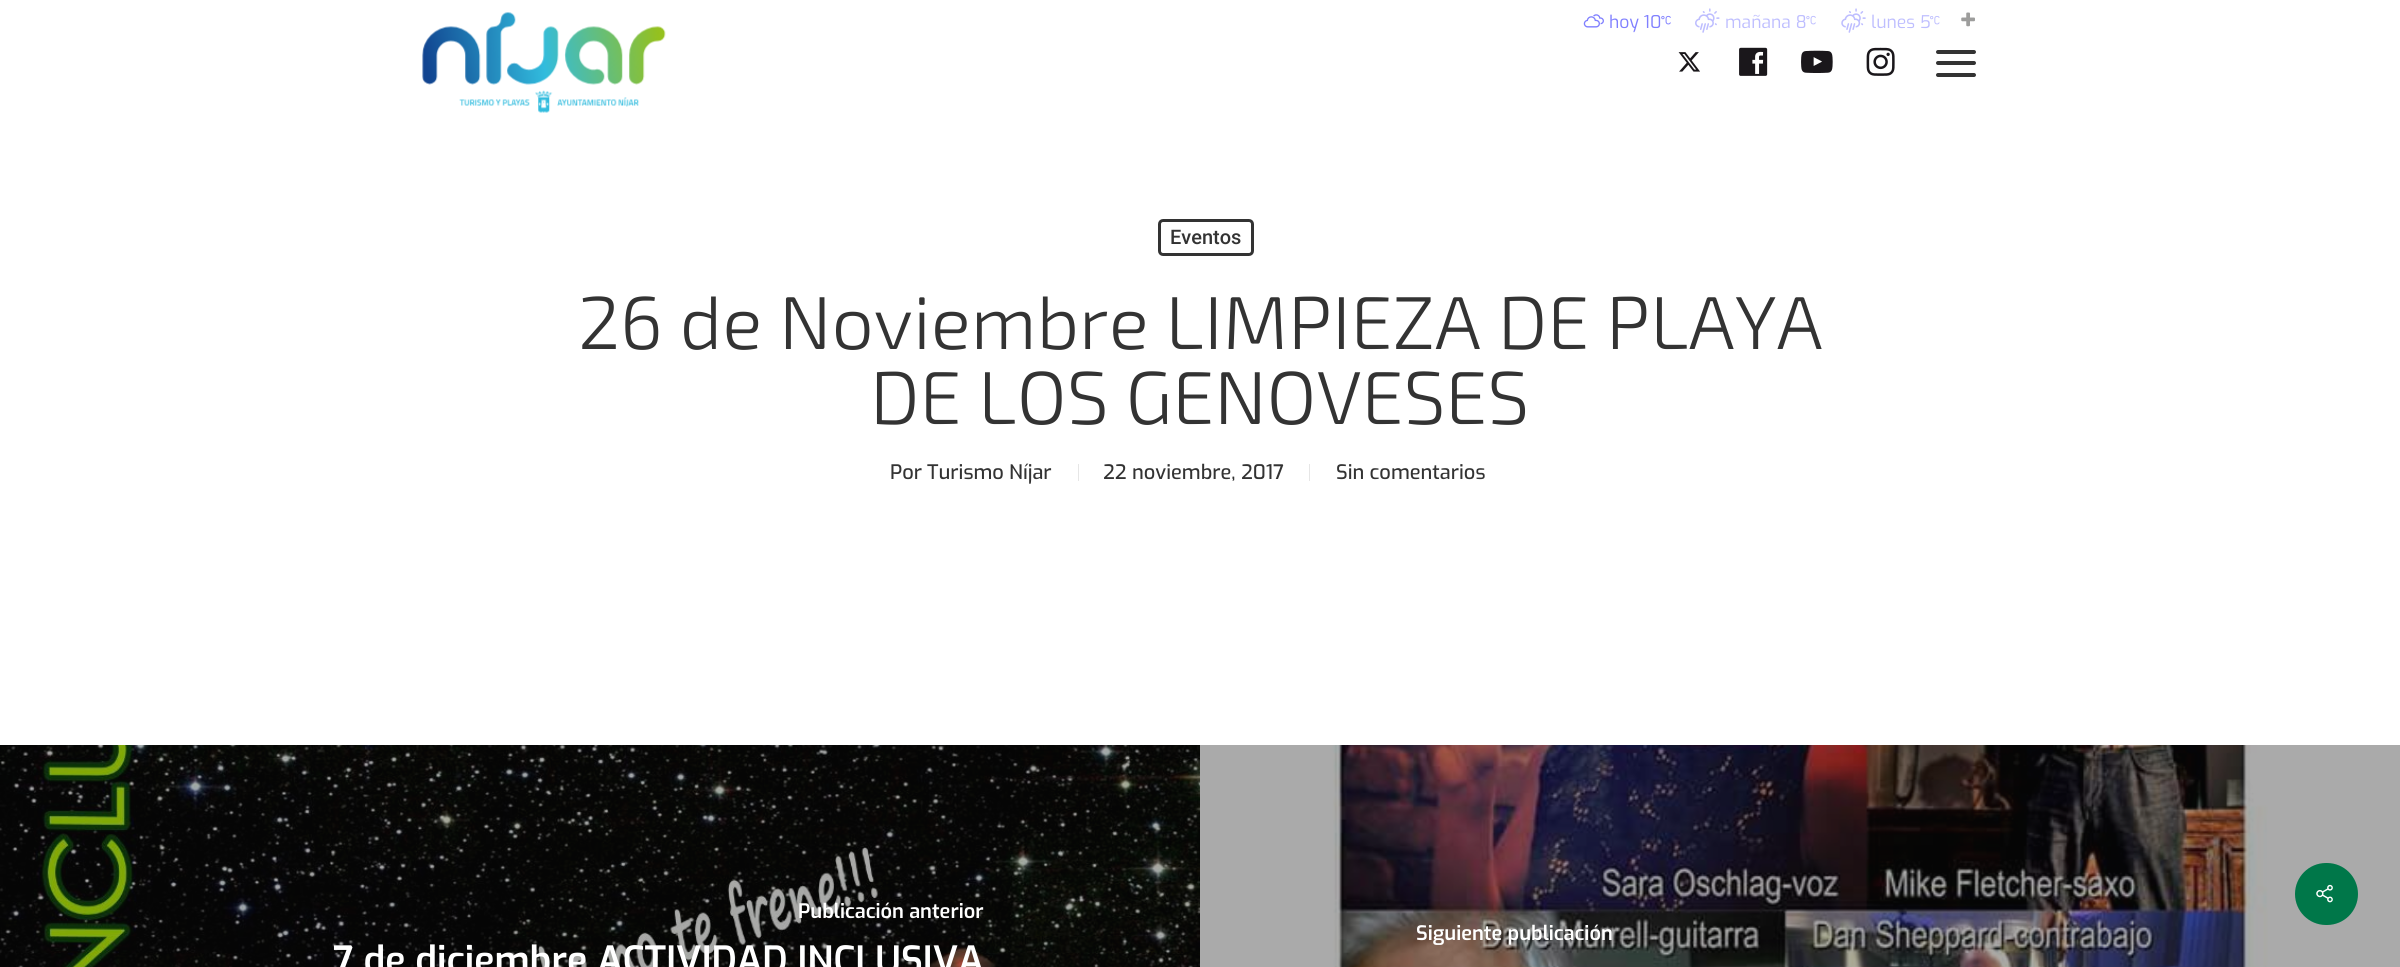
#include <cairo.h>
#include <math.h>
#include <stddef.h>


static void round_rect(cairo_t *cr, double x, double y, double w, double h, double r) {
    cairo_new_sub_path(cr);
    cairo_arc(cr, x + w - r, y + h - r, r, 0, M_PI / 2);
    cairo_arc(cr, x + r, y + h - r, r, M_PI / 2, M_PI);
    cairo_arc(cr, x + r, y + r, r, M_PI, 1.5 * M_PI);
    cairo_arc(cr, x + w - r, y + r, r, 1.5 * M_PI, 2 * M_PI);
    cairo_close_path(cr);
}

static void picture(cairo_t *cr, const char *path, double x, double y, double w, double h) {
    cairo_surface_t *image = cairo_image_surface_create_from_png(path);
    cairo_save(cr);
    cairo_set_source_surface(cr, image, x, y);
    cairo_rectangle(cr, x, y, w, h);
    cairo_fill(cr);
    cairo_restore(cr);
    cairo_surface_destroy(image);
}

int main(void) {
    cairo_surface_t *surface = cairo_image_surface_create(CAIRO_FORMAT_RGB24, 2400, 967);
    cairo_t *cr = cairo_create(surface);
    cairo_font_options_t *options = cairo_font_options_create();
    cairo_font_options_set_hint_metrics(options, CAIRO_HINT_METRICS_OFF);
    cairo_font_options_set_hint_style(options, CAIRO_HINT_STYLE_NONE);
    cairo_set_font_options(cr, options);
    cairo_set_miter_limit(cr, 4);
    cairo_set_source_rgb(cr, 1, 1, 1);
    cairo_paint(cr);
    picture(cr, "img1.png", 422, 12, 244, 101);
    picture(cr, "img2.png", 1583, 14, 21, 14);
    cairo_select_font_face(cr, "Exo", CAIRO_FONT_SLANT_NORMAL, CAIRO_FONT_WEIGHT_NORMAL);
    cairo_set_font_size(cr, 17.5);
    cairo_set_source_rgb(cr, 0.502, 0.502, 1);
    cairo_move_to(cr, 1609, 28);
    cairo_show_text(cr, "hoy 10");
    picture(cr, "img3.png", 1661, 15, 10, 10);
    picture(cr, "img4.png", 1695, 8, 25, 25);
    cairo_set_source_rgb(cr, 0.745, 0.745, 1);
    cairo_move_to(cr, 1725, 28);
    cairo_show_text(cr, "mañana 8");
    picture(cr, "img5.png", 1806, 15, 10, 10);
    picture(cr, "img6.png", 1841, 8, 25, 25);
    cairo_move_to(cr, 1871, 28);
    cairo_show_text(cr, "lunes 5");
    picture(cr, "img7.png", 1930, 16, 10, 9);
    picture(cr, "img8.png", 1961, 12, 14, 15);
    picture(cr, "img9.png", 1678, 52, 22, 20);
    picture(cr, "img10.png", 1739, 47, 29, 29);
    picture(cr, "img11.png", 1801, 50, 32, 23);
    picture(cr, "img12.png", 1866, 47, 29, 29);
    cairo_set_source_rgb(cr, 0.2, 0.2, 0.2);
    round_rect(cr, 1936, 50, 40, 4, 2);
    cairo_fill(cr);
    round_rect(cr, 1936, 73, 40, 4, 2);
    cairo_fill(cr);
    round_rect(cr, 1936, 61, 40, 4, 2);
    cairo_fill(cr);
    round_rect(cr, 1159.5, 220.5, 93, 34, 3.5);
    cairo_set_line_width(cr, 3);
    cairo_stroke(cr);
    cairo_select_font_face(cr, "Roboto Medium", CAIRO_FONT_SLANT_NORMAL, CAIRO_FONT_WEIGHT_NORMAL);
    cairo_set_font_size(cr, 20);
    cairo_move_to(cr, 1170, 244);
    cairo_show_text(cr, "Eventos");
    cairo_select_font_face(cr, "Exo 2 Light", CAIRO_FONT_SLANT_NORMAL, CAIRO_FONT_WEIGHT_NORMAL);
    cairo_set_font_size(cr, 75);
    cairo_move_to(cr, 578, 349);
    cairo_show_text(cr, "26 de Noviembre LIMPIEZA DE PLAYA");
    cairo_move_to(cr, 870, 424);
    cairo_show_text(cr, "DE LOS GENOVESES");
    cairo_select_font_face(cr, "Exo Medium", CAIRO_FONT_SLANT_NORMAL, CAIRO_FONT_WEIGHT_NORMAL);
    cairo_set_font_size(cr, 20);
    cairo_move_to(cr, 890, 479);
    cairo_show_text(cr, "Por");
    cairo_move_to(cr, 927, 479);
    cairo_show_text(cr, "Turismo Níjar");
    cairo_set_source_rgb(cr, 0.902, 0.902, 0.902);
    cairo_rectangle(cr, 1078, 464, 1, 17);
    cairo_fill(cr);
    cairo_set_source_rgb(cr, 0.2, 0.2, 0.2);
    cairo_move_to(cr, 1103, 479);
    cairo_show_text(cr, "22 noviembre, 2017");
    cairo_set_source_rgb(cr, 0.902, 0.902, 0.902);
    cairo_rectangle(cr, 1309, 464, 1, 17);
    cairo_fill(cr);
    cairo_set_source_rgb(cr, 0.2, 0.2, 0.2);
    cairo_move_to(cr, 1336, 479);
    cairo_show_text(cr, "Sin comentarios");
    picture(cr, "img13.png", 0, 745, 1200, 222);
    cairo_select_font_face(cr, "Exo SemiBold", CAIRO_FONT_SLANT_NORMAL, CAIRO_FONT_WEIGHT_NORMAL);
    cairo_set_source_rgb(cr, 1, 1, 1);
    cairo_move_to(cr, 798, 918);
    cairo_show_text(cr, "Publicación anterior");
    cairo_set_font_size(cr, 37.5);
    cairo_move_to(cr, 333, 973);
    cairo_show_text(cr, "7 de diciembre ACTIVIDAD INCLUSIVA");
    picture(cr, "img14.png", 1200, 745, 1200, 222);
    cairo_set_font_size(cr, 20);
    cairo_move_to(cr, 1416, 940);
    cairo_show_text(cr, "Siguiente publicación");
    cairo_set_source_rgb(cr, 0, 0.467, 0.286);
    round_rect(cr, 2295, 863, 63, 62, 31);
    cairo_fill(cr);
    picture(cr, "img15.png", 2316, 884, 17, 19);
    cairo_surface_write_to_png(surface, "page.png");
    cairo_font_options_destroy(options);
    cairo_destroy(cr);
    cairo_surface_destroy(surface);
    return 0;
}
